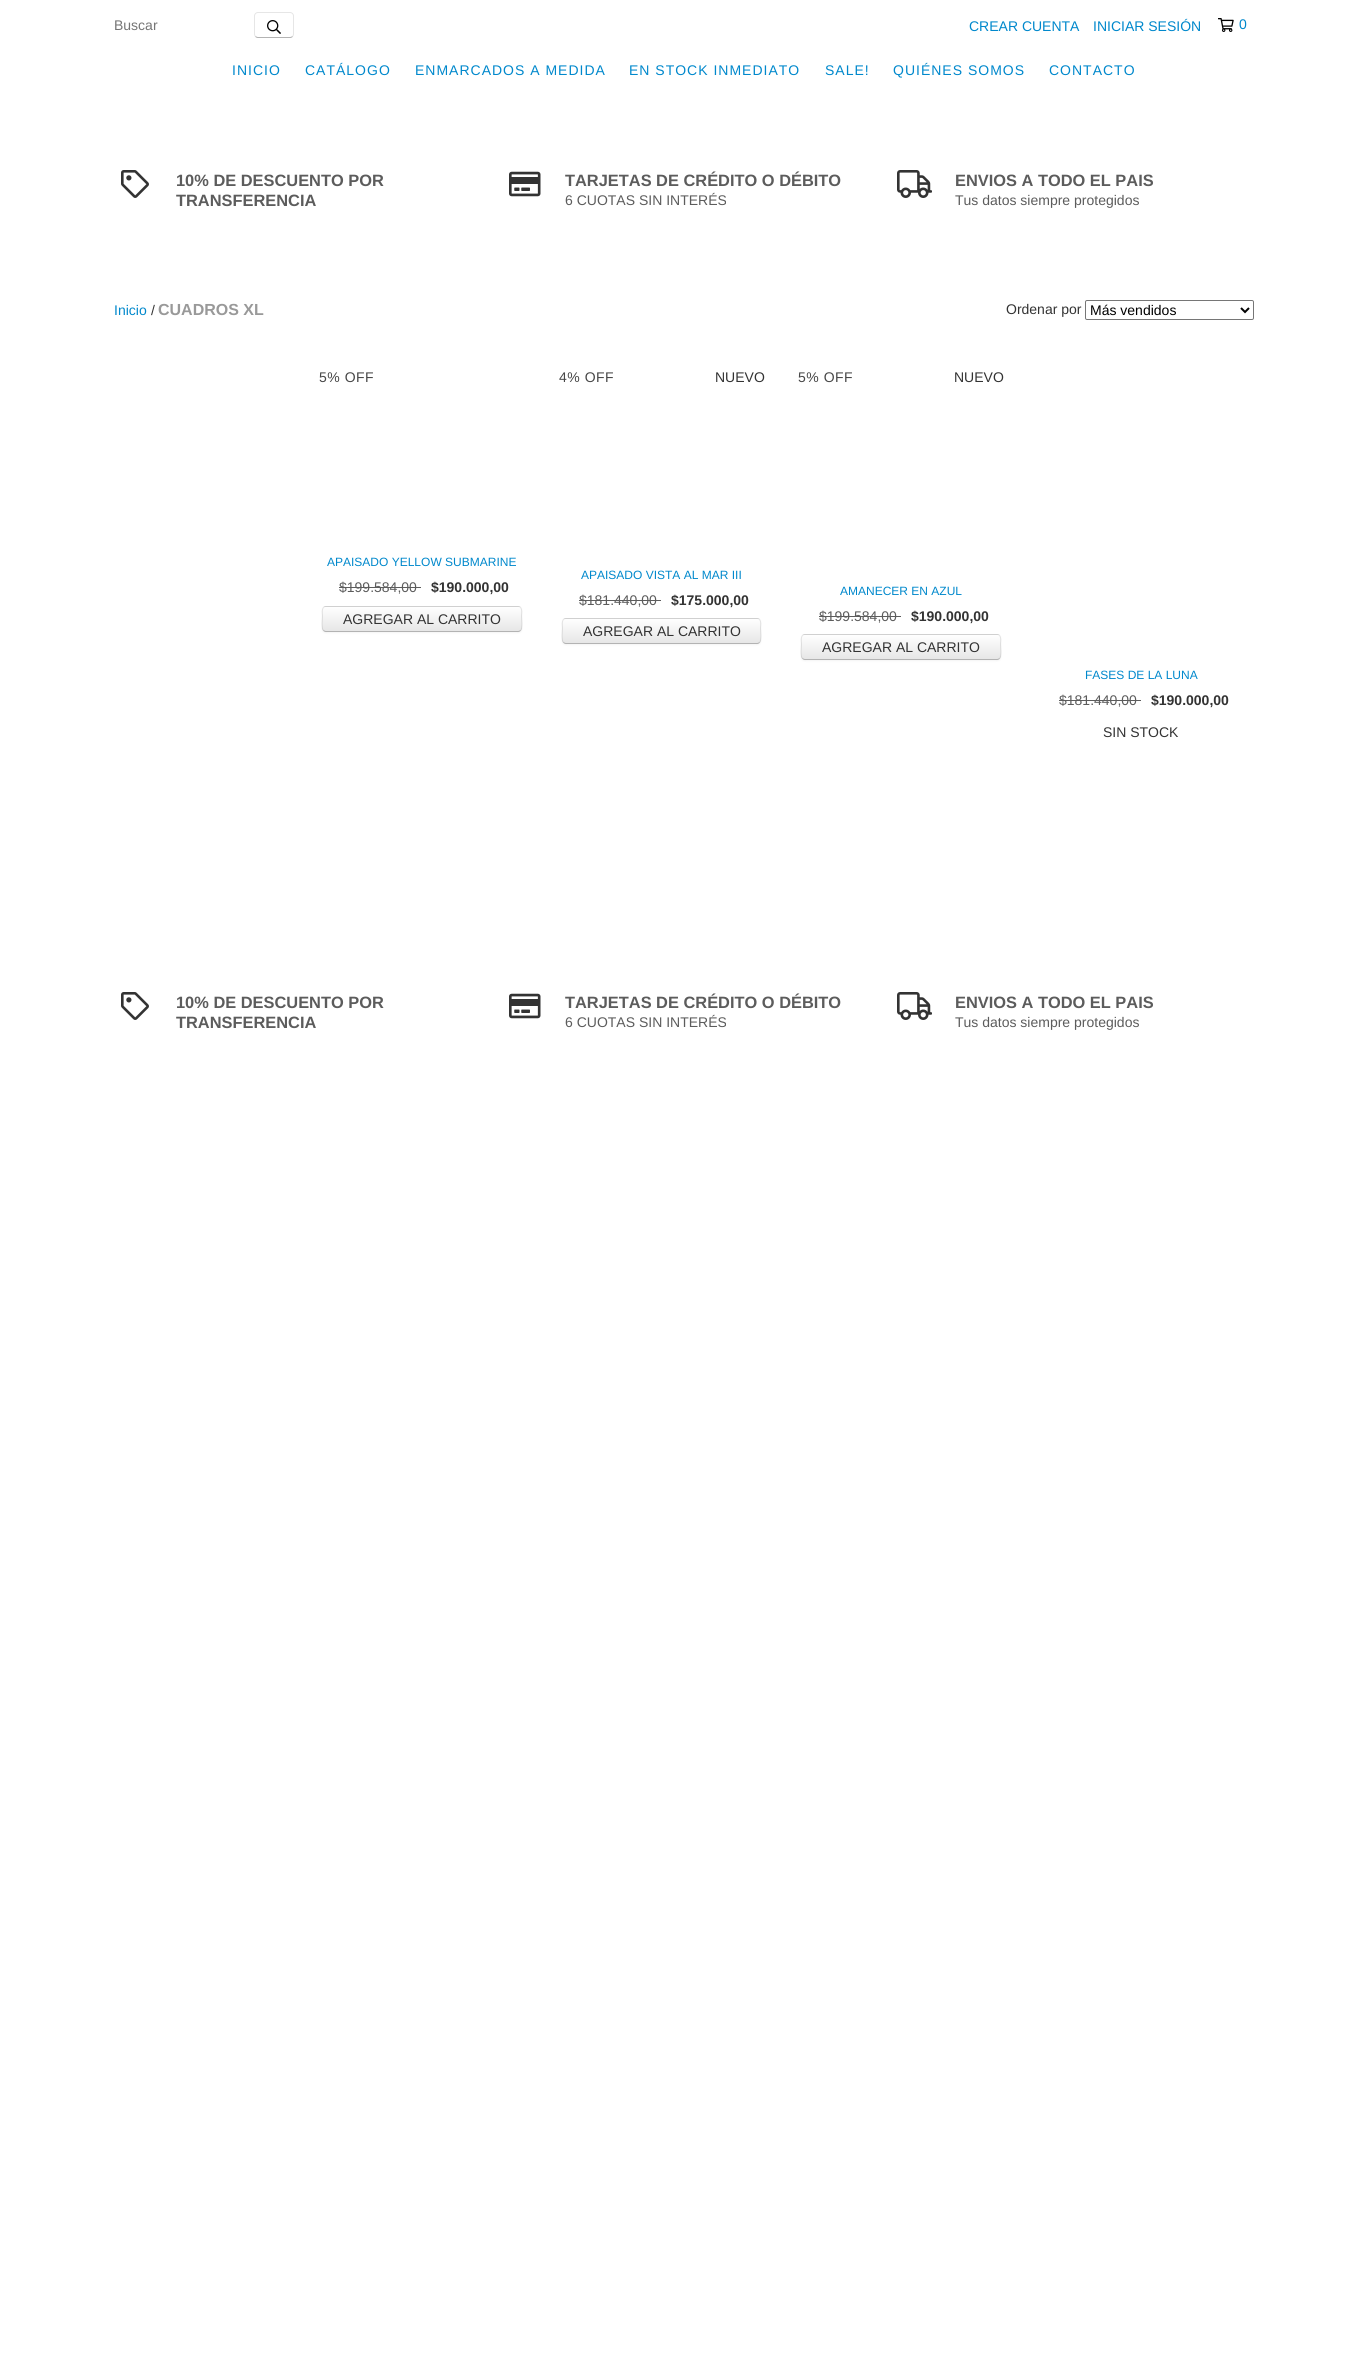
#include <cairo.h>
#include <math.h>
#include <stddef.h>


static void spaced_text(cairo_t *cr, double x, double y, const char *s, double letter, double word) {
    cairo_move_to(cr, x, y);
    while (*s) {
        char ch[5] = {0};
        int n = 0;
        do ch[n++] = *s++; while ((*s & 0xC0) == 0x80);
        cairo_show_text(cr, ch);
        cairo_rel_move_to(cr, letter + word * (*ch == ' '), 0);
    }
}

static void round_rect(cairo_t *cr, double x, double y, double w, double h, double r) {
    cairo_new_sub_path(cr);
    cairo_arc(cr, x + w - r, y + h - r, r, 0, M_PI / 2);
    cairo_arc(cr, x + r, y + h - r, r, M_PI / 2, M_PI);
    cairo_arc(cr, x + r, y + r, r, M_PI, 1.5 * M_PI);
    cairo_arc(cr, x + w - r, y + r, r, 1.5 * M_PI, 2 * M_PI);
    cairo_close_path(cr);
}

static void shadow(cairo_t *cr, double x, double y, double w, double h, double r, double blur, double alpha) {
    cairo_push_group_with_content(cr, CAIRO_CONTENT_ALPHA);
    cairo_set_operator(cr, CAIRO_OPERATOR_SOURCE);
    for (int i = 15; i >= -15 && fmin(w, h) + blur * i / 3 > 0; i -= 2) {
        double e = blur * i / 6;
        cairo_set_source_rgba(cr, 0, 0, 0, alpha * erfc((i - 1) / 8.5) / 2);
        round_rect(cr, x - e, y - e, w + 2 * e, h + 2 * e, fmax(0, fmin(r + e + blur * .6, fmin(w, h) / 2 + e)));
        cairo_fill(cr);
    }
    cairo_pattern_t *soft = cairo_pop_group(cr);
    cairo_mask(cr, soft);
    cairo_pattern_destroy(soft);
}

static void picture(cairo_t *cr, const char *path, double x, double y, double w, double h) {
    cairo_surface_t *image = cairo_image_surface_create_from_png(path);
    cairo_save(cr);
    cairo_set_source_surface(cr, image, x, y);
    cairo_rectangle(cr, x, y, w, h);
    cairo_fill(cr);
    cairo_restore(cr);
    cairo_surface_destroy(image);
}

int main(void) {
    cairo_surface_t *surface = cairo_image_surface_create(CAIRO_FORMAT_RGB24, 1368, 2363);
    cairo_t *cr = cairo_create(surface);
    cairo_font_options_t *options = cairo_font_options_create();
    cairo_font_options_set_hint_metrics(options, CAIRO_HINT_METRICS_OFF);
    cairo_font_options_set_hint_style(options, CAIRO_HINT_STYLE_NONE);
    cairo_set_font_options(cr, options);
    cairo_set_miter_limit(cr, 4);
    cairo_pattern_t *gradient;
    cairo_set_source_rgb(cr, 1, 1, 1);
    cairo_paint(cr);
    cairo_select_font_face(cr, "Liberation Sans", CAIRO_FONT_SLANT_NORMAL, CAIRO_FONT_WEIGHT_NORMAL);
    cairo_set_font_size(cr, 14);
    cairo_set_source_rgb(cr, 0.459, 0.459, 0.459);
    cairo_move_to(cr, 114, 30);
    cairo_show_text(cr, "Buscar");
    cairo_new_path(cr);
    cairo_move_to(cr, 292.5, 36.5);
    cairo_curve_to(cr, 292, 37, 291, 37.5, 290, 37.5);
    cairo_line_to(cr, 258, 37.5);
    cairo_curve_to(cr, 257, 37.5, 256, 37, 255.5, 36.5);
    cairo_set_source_rgb(cr, 0.702, 0.702, 0.702);
    cairo_set_line_width(cr, 1);
    cairo_stroke(cr);
    cairo_new_path(cr);
    cairo_move_to(cr, 255.5, 36.5);
    cairo_curve_to(cr, 255, 36, 254.5, 35, 254.5, 34);
    cairo_line_to(cr, 254.5, 16);
    cairo_curve_to(cr, 254.5, 15, 255, 14, 255.5, 13.5);
    cairo_curve_to(cr, 256, 13, 257, 12.5, 258, 12.5);
    cairo_line_to(cr, 290, 12.5);
    cairo_curve_to(cr, 291, 12.5, 292, 13, 292.5, 13.5);
    cairo_curve_to(cr, 293, 14, 293.5, 15, 293.5, 16);
    cairo_line_to(cr, 293.5, 34);
    cairo_curve_to(cr, 293.5, 35, 293, 36, 292.5, 36.5);
    cairo_set_source_rgba(cr, 0, 0, 0, 0.1);
    cairo_stroke(cr);
    picture(cr, "img1.png", 267, 20, 14, 14);
    cairo_set_source_rgb(cr, 0, 0.533, 0.8);
    cairo_move_to(cr, 969, 31);
    cairo_show_text(cr, "CREAR CUENTA");
    cairo_move_to(cr, 1093, 31);
    cairo_show_text(cr, "INICIAR SESIÓN");
    picture(cr, "img2.png", 1218, 18, 16, 14);
    spaced_text(cr, 1239, 29, "0", 1, 0);
    spaced_text(cr, 232, 75, "INICIO", 1, 0);
    spaced_text(cr, 305, 75, "CATÁLOGO", 1, 0);
    spaced_text(cr, 415, 75, "ENMARCADOS A MEDIDA", 1, 0);
    spaced_text(cr, 629, 75, "EN STOCK INMEDIATO", 1, 0);
    spaced_text(cr, 825, 75, "SALE!", 1, 0);
    spaced_text(cr, 893, 75, "QUIÉNES SOMOS", 1, 0);
    spaced_text(cr, 1049, 75, "CONTACTO", 1, 0);
    picture(cr, "img3.png", 121, 170, 28, 28);
    cairo_select_font_face(cr, "Liberation Sans", CAIRO_FONT_SLANT_NORMAL, CAIRO_FONT_WEIGHT_BOLD);
    cairo_set_font_size(cr, 16.4);
    cairo_set_source_rgb(cr, 0.361, 0.361, 0.361);
    cairo_move_to(cr, 176, 186);
    cairo_show_text(cr, "10% DE DESCUENTO POR");
    cairo_move_to(cr, 176, 206);
    cairo_show_text(cr, "TRANSFERENCIA");
    picture(cr, "img4.png", 509, 171, 32, 26);
    cairo_move_to(cr, 565, 186);
    cairo_show_text(cr, "TARJETAS DE CRÉDITO O DÉBITO");
    cairo_select_font_face(cr, "Liberation Sans", CAIRO_FONT_SLANT_NORMAL, CAIRO_FONT_WEIGHT_NORMAL);
    cairo_set_font_size(cr, 14);
    cairo_move_to(cr, 565, 205);
    cairo_show_text(cr, "6 CUOTAS SIN INTERÉS");
    picture(cr, "img5.png", 897, 170, 35, 28);
    cairo_select_font_face(cr, "Liberation Sans", CAIRO_FONT_SLANT_NORMAL, CAIRO_FONT_WEIGHT_BOLD);
    cairo_set_font_size(cr, 16.4);
    cairo_move_to(cr, 955, 186);
    cairo_show_text(cr, "ENVIOS A TODO EL PAIS");
    cairo_select_font_face(cr, "Liberation Sans", CAIRO_FONT_SLANT_NORMAL, CAIRO_FONT_WEIGHT_NORMAL);
    cairo_set_font_size(cr, 14);
    cairo_move_to(cr, 955, 205);
    cairo_show_text(cr, "Tus datos siempre protegidos");
    cairo_set_source_rgb(cr, 0, 0.533, 0.8);
    cairo_move_to(cr, 114, 315);
    cairo_show_text(cr, "Inicio");
    cairo_set_source_rgb(cr, 0.2, 0.2, 0.2);
    cairo_move_to(cr, 151, 315);
    cairo_show_text(cr, "/");
    cairo_select_font_face(cr, "Liberation Sans", CAIRO_FONT_SLANT_NORMAL, CAIRO_FONT_WEIGHT_BOLD);
    cairo_set_font_size(cr, 16);
    cairo_set_source_rgb(cr, 0.6, 0.6, 0.6);
    cairo_move_to(cr, 158, 315);
    cairo_show_text(cr, "CUADROS XL");
    cairo_select_font_face(cr, "Liberation Sans", CAIRO_FONT_SLANT_NORMAL, CAIRO_FONT_WEIGHT_NORMAL);
    cairo_set_font_size(cr, 14);
    cairo_set_source_rgb(cr, 0.2, 0.2, 0.2);
    cairo_move_to(cr, 1006, 314);
    cairo_show_text(cr, "Ordenar por");
    round_rect(cr, 1085.5, 300.5, 168, 19, 1.5);
    cairo_set_source_rgb(cr, 0.463, 0.463, 0.463);
    cairo_stroke(cr);
    cairo_new_path(cr);
    cairo_move_to(cr, 1241, 308);
    cairo_line_to(cr, 1245, 312);
    cairo_line_to(cr, 1249, 308);
    cairo_set_source_rgb(cr, 0, 0, 0);
    cairo_set_line_width(cr, 2);
    cairo_stroke(cr);
    cairo_move_to(cr, 1090, 315);
    cairo_show_text(cr, "Más vendidos");
    cairo_set_source_rgb(cr, 0.278, 0.278, 0.278);
    spaced_text(cr, 319, 382, "5% OFF", 0.5, 0);
    cairo_set_font_size(cr, 12);
    cairo_set_source_rgb(cr, 0, 0.533, 0.8);
    cairo_move_to(cr, 327, 566);
    cairo_show_text(cr, "APAISADO YELLOW SUBMARINE");
    cairo_set_font_size(cr, 14);
    cairo_set_source_rgb(cr, 0.361, 0.361, 0.361);
    cairo_move_to(cr, 339, 592);
    cairo_show_text(cr, "$199.584,00");
    cairo_rectangle(cr, 339, 587, 82, 1);
    cairo_fill(cr);
    cairo_select_font_face(cr, "Liberation Sans", CAIRO_FONT_SLANT_NORMAL, CAIRO_FONT_WEIGHT_BOLD);
    cairo_set_source_rgb(cr, 0.2, 0.2, 0.2);
    cairo_move_to(cr, 431, 592);
    cairo_show_text(cr, "$190.000,00");
    cairo_set_source_rgb(cr, 0, 0, 0);
    shadow(cr, 322, 607, 200, 26, 4, 1, 0.05);
    cairo_save(cr);
    round_rect(cr, 322, 606, 200, 26, 4);
    cairo_clip(cr);
    gradient = cairo_pattern_create_linear(422, 607, 422, 631);
    cairo_pattern_add_color_stop_rgba(gradient, 0, 1, 1, 1, 1);
    cairo_pattern_add_color_stop_rgba(gradient, 1, 0.902, 0.902, 0.902, 1);
    cairo_set_source(cr, gradient);
    cairo_pattern_destroy(gradient);
    cairo_rectangle(cr, 322, 607, 200, 24);
    cairo_fill(cr);
    gradient = cairo_pattern_create_linear(422, 583, 422, 607);
    cairo_pattern_add_color_stop_rgba(gradient, 0, 1, 1, 1, 1);
    cairo_pattern_add_color_stop_rgba(gradient, 1, 0.902, 0.902, 0.902, 1);
    cairo_set_source(cr, gradient);
    cairo_pattern_destroy(gradient);
    cairo_rectangle(cr, 322, 606, 200, 1);
    cairo_fill(cr);
    cairo_restore(cr);
    cairo_new_path(cr);
    cairo_move_to(cr, 520.5, 630.5);
    cairo_curve_to(cr, 520, 631, 519, 631.5, 518, 631.5);
    cairo_line_to(cr, 326, 631.5);
    cairo_curve_to(cr, 325, 631.5, 324, 631, 323.5, 630.5);
    cairo_set_source_rgb(cr, 0.702, 0.702, 0.702);
    cairo_set_line_width(cr, 1);
    cairo_stroke(cr);
    cairo_new_path(cr);
    cairo_move_to(cr, 323.5, 630.5);
    cairo_curve_to(cr, 321, 628, 322.5, 619, 322.5, 616);
    cairo_curve_to(cr, 322.5, 613.5, 321, 606.5, 326, 606.5);
    cairo_line_to(cr, 518, 606.5);
    cairo_curve_to(cr, 523, 606.5, 521.5, 613.5, 521.5, 616);
    cairo_curve_to(cr, 521.5, 619, 523, 628, 520.5, 630.5);
    cairo_set_source_rgba(cr, 0, 0, 0, 0.1);
    cairo_stroke(cr);
    cairo_select_font_face(cr, "Liberation Sans", CAIRO_FONT_SLANT_NORMAL, CAIRO_FONT_WEIGHT_NORMAL);
    cairo_set_source_rgb(cr, 0.2, 0.2, 0.2);
    cairo_move_to(cr, 343, 624);
    cairo_show_text(cr, "AGREGAR AL CARRITO");
    cairo_set_source_rgb(cr, 0.278, 0.278, 0.278);
    spaced_text(cr, 559, 382, "4% OFF", 0.5, 0);
    cairo_set_source_rgb(cr, 0.2, 0.2, 0.2);
    cairo_move_to(cr, 715, 382);
    cairo_show_text(cr, "NUEVO");
    cairo_set_font_size(cr, 12);
    cairo_set_source_rgb(cr, 0, 0.533, 0.8);
    cairo_move_to(cr, 581, 579);
    cairo_show_text(cr, "APAISADO VISTA AL MAR III");
    cairo_set_font_size(cr, 14);
    cairo_set_source_rgb(cr, 0.361, 0.361, 0.361);
    cairo_move_to(cr, 579, 605);
    cairo_show_text(cr, "$181.440,00");
    cairo_rectangle(cr, 579, 600, 82, 1);
    cairo_fill(cr);
    cairo_select_font_face(cr, "Liberation Sans", CAIRO_FONT_SLANT_NORMAL, CAIRO_FONT_WEIGHT_BOLD);
    cairo_set_source_rgb(cr, 0.2, 0.2, 0.2);
    cairo_move_to(cr, 671, 605);
    cairo_show_text(cr, "$175.000,00");
    cairo_set_source_rgb(cr, 0, 0, 0);
    shadow(cr, 562, 619, 199, 26, 4, 1, 0.05);
    cairo_save(cr);
    round_rect(cr, 562, 618, 199, 26, 4);
    cairo_clip(cr);
    gradient = cairo_pattern_create_linear(662, 619, 662, 643);
    cairo_pattern_add_color_stop_rgba(gradient, 0, 1, 1, 1, 1);
    cairo_pattern_add_color_stop_rgba(gradient, 1, 0.902, 0.902, 0.902, 1);
    cairo_set_source(cr, gradient);
    cairo_pattern_destroy(gradient);
    cairo_rectangle(cr, 562, 619, 199, 24);
    cairo_fill(cr);
    gradient = cairo_pattern_create_linear(662, 595, 662, 619);
    cairo_pattern_add_color_stop_rgba(gradient, 0, 1, 1, 1, 1);
    cairo_pattern_add_color_stop_rgba(gradient, 1, 0.902, 0.902, 0.902, 1);
    cairo_set_source(cr, gradient);
    cairo_pattern_destroy(gradient);
    cairo_rectangle(cr, 562, 618, 199, 1);
    cairo_fill(cr);
    cairo_restore(cr);
    cairo_new_path(cr);
    cairo_move_to(cr, 759.5, 642.5);
    cairo_curve_to(cr, 759, 643, 758, 643.5, 757, 643.5);
    cairo_line_to(cr, 566, 643.5);
    cairo_curve_to(cr, 565, 643.5, 564, 643, 563.5, 642.5);
    cairo_set_source_rgb(cr, 0.702, 0.702, 0.702);
    cairo_stroke(cr);
    cairo_new_path(cr);
    cairo_move_to(cr, 563.5, 642.5);
    cairo_curve_to(cr, 561, 640, 562.5, 631, 562.5, 628);
    cairo_curve_to(cr, 562.5, 625.5, 561, 618.5, 566, 618.5);
    cairo_line_to(cr, 757, 618.5);
    cairo_curve_to(cr, 762, 618.5, 760.5, 625.5, 760.5, 628);
    cairo_curve_to(cr, 760.5, 631, 762, 640, 759.5, 642.5);
    cairo_set_source_rgba(cr, 0, 0, 0, 0.1);
    cairo_stroke(cr);
    cairo_select_font_face(cr, "Liberation Sans", CAIRO_FONT_SLANT_NORMAL, CAIRO_FONT_WEIGHT_NORMAL);
    cairo_set_source_rgb(cr, 0.2, 0.2, 0.2);
    cairo_move_to(cr, 583, 636);
    cairo_show_text(cr, "AGREGAR AL CARRITO");
    cairo_set_source_rgb(cr, 0.278, 0.278, 0.278);
    spaced_text(cr, 798, 382, "5% OFF", 0.5, 0);
    cairo_set_source_rgb(cr, 0.2, 0.2, 0.2);
    cairo_move_to(cr, 954, 382);
    cairo_show_text(cr, "NUEVO");
    cairo_set_font_size(cr, 12);
    cairo_set_source_rgb(cr, 0, 0.533, 0.8);
    cairo_move_to(cr, 840, 595);
    cairo_show_text(cr, "AMANECER EN AZUL");
    cairo_set_font_size(cr, 14);
    cairo_set_source_rgb(cr, 0.361, 0.361, 0.361);
    cairo_move_to(cr, 819, 621);
    cairo_show_text(cr, "$199.584,00");
    cairo_rectangle(cr, 819, 616, 82, 1);
    cairo_fill(cr);
    cairo_select_font_face(cr, "Liberation Sans", CAIRO_FONT_SLANT_NORMAL, CAIRO_FONT_WEIGHT_BOLD);
    cairo_set_source_rgb(cr, 0.2, 0.2, 0.2);
    cairo_move_to(cr, 911, 621);
    cairo_show_text(cr, "$190.000,00");
    cairo_set_source_rgb(cr, 0, 0, 0);
    shadow(cr, 801, 635, 200, 26, 4, 1, 0.05);
    cairo_save(cr);
    round_rect(cr, 801, 634, 200, 26, 4);
    cairo_clip(cr);
    gradient = cairo_pattern_create_linear(901, 635, 901, 659);
    cairo_pattern_add_color_stop_rgba(gradient, 0, 1, 1, 1, 1);
    cairo_pattern_add_color_stop_rgba(gradient, 1, 0.902, 0.902, 0.902, 1);
    cairo_set_source(cr, gradient);
    cairo_pattern_destroy(gradient);
    cairo_rectangle(cr, 801, 635, 200, 24);
    cairo_fill(cr);
    gradient = cairo_pattern_create_linear(901, 611, 901, 635);
    cairo_pattern_add_color_stop_rgba(gradient, 0, 1, 1, 1, 1);
    cairo_pattern_add_color_stop_rgba(gradient, 1, 0.902, 0.902, 0.902, 1);
    cairo_set_source(cr, gradient);
    cairo_pattern_destroy(gradient);
    cairo_rectangle(cr, 801, 634, 200, 1);
    cairo_fill(cr);
    cairo_restore(cr);
    cairo_new_path(cr);
    cairo_move_to(cr, 999.5, 658.5);
    cairo_curve_to(cr, 999, 659, 998, 659.5, 997, 659.5);
    cairo_line_to(cr, 805, 659.5);
    cairo_curve_to(cr, 804, 659.5, 803, 659, 802.5, 658.5);
    cairo_set_source_rgb(cr, 0.702, 0.702, 0.702);
    cairo_stroke(cr);
    cairo_new_path(cr);
    cairo_move_to(cr, 802.5, 658.5);
    cairo_curve_to(cr, 800, 656, 801.5, 647, 801.5, 644);
    cairo_curve_to(cr, 801.5, 641.5, 800, 634.5, 805, 634.5);
    cairo_line_to(cr, 997, 634.5);
    cairo_curve_to(cr, 1002, 634.5, 1000.5, 641.5, 1000.5, 644);
    cairo_curve_to(cr, 1000.5, 647, 1002, 656, 999.5, 658.5);
    cairo_set_source_rgba(cr, 0, 0, 0, 0.1);
    cairo_stroke(cr);
    cairo_select_font_face(cr, "Liberation Sans", CAIRO_FONT_SLANT_NORMAL, CAIRO_FONT_WEIGHT_NORMAL);
    cairo_set_source_rgb(cr, 0.2, 0.2, 0.2);
    cairo_move_to(cr, 822, 652);
    cairo_show_text(cr, "AGREGAR AL CARRITO");
    cairo_set_font_size(cr, 12);
    cairo_set_source_rgb(cr, 0, 0.533, 0.8);
    cairo_move_to(cr, 1085, 679);
    cairo_show_text(cr, "FASES DE LA LUNA");
    cairo_set_font_size(cr, 14);
    cairo_set_source_rgb(cr, 0.361, 0.361, 0.361);
    cairo_move_to(cr, 1059, 705);
    cairo_show_text(cr, "$181.440,00");
    cairo_rectangle(cr, 1059, 700, 82, 1);
    cairo_fill(cr);
    cairo_select_font_face(cr, "Liberation Sans", CAIRO_FONT_SLANT_NORMAL, CAIRO_FONT_WEIGHT_BOLD);
    cairo_set_source_rgb(cr, 0.2, 0.2, 0.2);
    cairo_move_to(cr, 1151, 705);
    cairo_show_text(cr, "$190.000,00");
    cairo_select_font_face(cr, "Liberation Sans", CAIRO_FONT_SLANT_NORMAL, CAIRO_FONT_WEIGHT_NORMAL);
    cairo_move_to(cr, 1103, 737);
    cairo_show_text(cr, "SIN STOCK");
    picture(cr, "img3.png", 121, 992, 28, 28);
    cairo_select_font_face(cr, "Liberation Sans", CAIRO_FONT_SLANT_NORMAL, CAIRO_FONT_WEIGHT_BOLD);
    cairo_set_font_size(cr, 16.4);
    cairo_set_source_rgb(cr, 0.361, 0.361, 0.361);
    cairo_move_to(cr, 176, 1008);
    cairo_show_text(cr, "10% DE DESCUENTO POR");
    cairo_move_to(cr, 176, 1028);
    cairo_show_text(cr, "TRANSFERENCIA");
    picture(cr, "img4.png", 509, 993, 32, 26);
    cairo_move_to(cr, 565, 1008);
    cairo_show_text(cr, "TARJETAS DE CRÉDITO O DÉBITO");
    cairo_select_font_face(cr, "Liberation Sans", CAIRO_FONT_SLANT_NORMAL, CAIRO_FONT_WEIGHT_NORMAL);
    cairo_set_font_size(cr, 14);
    cairo_move_to(cr, 565, 1027);
    cairo_show_text(cr, "6 CUOTAS SIN INTERÉS");
    picture(cr, "img5.png", 897, 992, 35, 28);
    cairo_select_font_face(cr, "Liberation Sans", CAIRO_FONT_SLANT_NORMAL, CAIRO_FONT_WEIGHT_BOLD);
    cairo_set_font_size(cr, 16.4);
    cairo_move_to(cr, 955, 1008);
    cairo_show_text(cr, "ENVIOS A TODO EL PAIS");
    cairo_select_font_face(cr, "Liberation Sans", CAIRO_FONT_SLANT_NORMAL, CAIRO_FONT_WEIGHT_NORMAL);
    cairo_set_font_size(cr, 14);
    cairo_move_to(cr, 955, 1027);
    cairo_show_text(cr, "Tus datos siempre protegidos");
    cairo_surface_write_to_png(surface, "page.png");
    cairo_font_options_destroy(options);
    cairo_destroy(cr);
    cairo_surface_destroy(surface);
    return 0;
}
